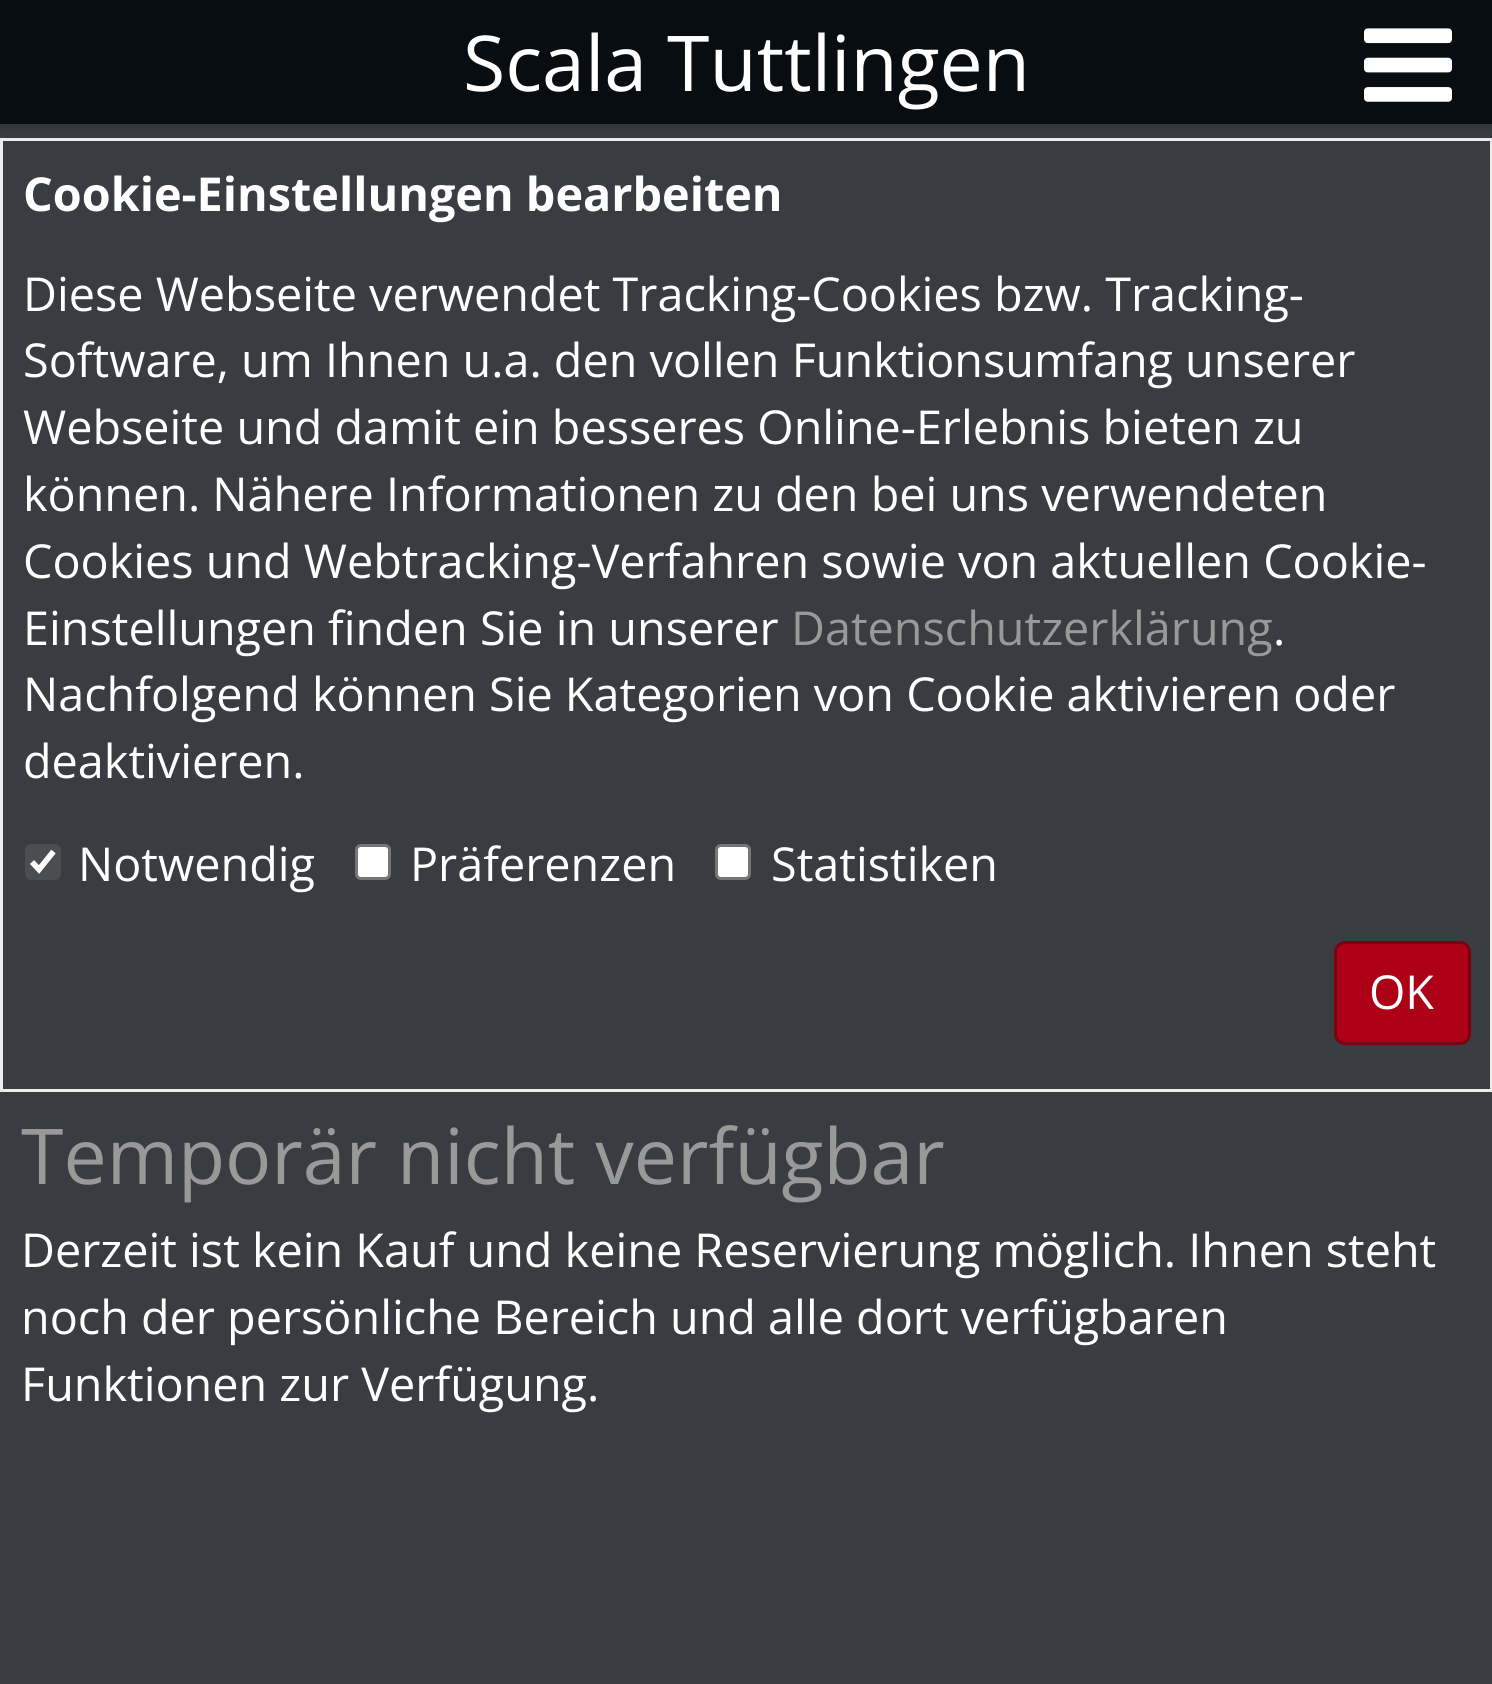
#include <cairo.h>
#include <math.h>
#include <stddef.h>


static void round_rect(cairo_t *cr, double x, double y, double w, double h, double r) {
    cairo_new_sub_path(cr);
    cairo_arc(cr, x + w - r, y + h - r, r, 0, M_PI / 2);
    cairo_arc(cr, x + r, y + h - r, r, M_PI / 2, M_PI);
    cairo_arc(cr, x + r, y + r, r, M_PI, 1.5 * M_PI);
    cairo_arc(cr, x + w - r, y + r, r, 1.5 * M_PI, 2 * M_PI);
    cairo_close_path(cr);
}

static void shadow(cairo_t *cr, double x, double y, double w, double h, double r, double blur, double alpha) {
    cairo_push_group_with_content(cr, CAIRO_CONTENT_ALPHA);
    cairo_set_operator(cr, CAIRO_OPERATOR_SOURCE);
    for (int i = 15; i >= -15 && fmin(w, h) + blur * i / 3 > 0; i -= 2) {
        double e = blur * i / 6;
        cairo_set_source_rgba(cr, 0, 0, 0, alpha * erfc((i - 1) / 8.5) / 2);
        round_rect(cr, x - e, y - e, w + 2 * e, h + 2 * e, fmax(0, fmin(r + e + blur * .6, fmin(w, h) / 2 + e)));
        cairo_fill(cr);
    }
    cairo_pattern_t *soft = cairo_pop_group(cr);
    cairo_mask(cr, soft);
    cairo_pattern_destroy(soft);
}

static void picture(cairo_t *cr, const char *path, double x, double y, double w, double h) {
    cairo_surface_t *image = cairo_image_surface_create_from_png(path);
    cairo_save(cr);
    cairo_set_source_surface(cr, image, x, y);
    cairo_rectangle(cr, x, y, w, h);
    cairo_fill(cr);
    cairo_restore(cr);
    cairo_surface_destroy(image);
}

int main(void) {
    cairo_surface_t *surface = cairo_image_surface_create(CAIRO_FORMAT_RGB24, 1492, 1684);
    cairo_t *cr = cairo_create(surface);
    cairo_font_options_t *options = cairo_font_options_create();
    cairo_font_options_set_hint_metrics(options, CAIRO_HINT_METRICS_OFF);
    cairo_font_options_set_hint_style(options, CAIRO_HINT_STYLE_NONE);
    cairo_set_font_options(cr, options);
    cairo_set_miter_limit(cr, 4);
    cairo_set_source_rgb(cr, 0.224, 0.239, 0.255);
    cairo_paint(cr);
    cairo_rectangle(cr, 1.5, 139.5, 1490, 951);
    cairo_set_source_rgb(cr, 0.925, 0.925, 0.925);
    cairo_set_line_width(cr, 3);
    cairo_stroke(cr);
    cairo_set_source_rgb(cr, 0, 0, 0);
    shadow(cr, 0, 6, 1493, 123, 0, 5.5, 0.16);
    cairo_set_source_rgb(cr, 0.031, 0.051, 0.067);
    cairo_rectangle(cr, 0, 0, 1492, 124);
    cairo_fill(cr);
    cairo_select_font_face(cr, "Open Sans", CAIRO_FONT_SLANT_NORMAL, CAIRO_FONT_WEIGHT_NORMAL);
    cairo_set_font_size(cr, 77);
    cairo_set_source_rgb(cr, 1, 1, 1);
    cairo_move_to(cr, 463, 91);
    cairo_show_text(cr, "Scala Tuttlingen");
    picture(cr, "img1.png", 1364, 28, 88, 74);
    cairo_select_font_face(cr, "Open Sans", CAIRO_FONT_SLANT_NORMAL, CAIRO_FONT_WEIGHT_BOLD);
    cairo_set_font_size(cr, 46.75);
    cairo_move_to(cr, 23, 211);
    cairo_show_text(cr, "Cookie-Einstellungen bearbeiten");
    cairo_select_font_face(cr, "Open Sans", CAIRO_FONT_SLANT_NORMAL, CAIRO_FONT_WEIGHT_NORMAL);
    cairo_move_to(cr, 23, 311);
    cairo_show_text(cr, "Diese Webseite verwendet Tracking-Cookies bzw. Tracking-");
    cairo_move_to(cr, 23, 377);
    cairo_show_text(cr, "Software, um Ihnen u.a. den vollen Funktionsumfang unserer");
    cairo_move_to(cr, 23, 444);
    cairo_show_text(cr, "Webseite und damit ein besseres Online-Erlebnis bieten zu");
    cairo_move_to(cr, 23, 511);
    cairo_show_text(cr, "können. Nähere Informationen zu den bei uns verwendeten");
    cairo_move_to(cr, 23, 578);
    cairo_show_text(cr, "Cookies und Webtracking-Verfahren sowie von aktuellen Cookie-");
    cairo_move_to(cr, 23, 645);
    cairo_show_text(cr, "Einstellungen finden Sie in unserer");
    cairo_set_source_rgb(cr, 0.6, 0.6, 0.6);
    cairo_move_to(cr, 791, 645);
    cairo_show_text(cr, "Datenschutzerklärung");
    cairo_set_source_rgb(cr, 1, 1, 1);
    cairo_move_to(cr, 1273, 645);
    cairo_show_text(cr, ".");
    cairo_move_to(cr, 23, 711);
    cairo_show_text(cr, "Nachfolgend können Sie Kategorien von Cookie aktivieren oder");
    cairo_move_to(cr, 23, 778);
    cairo_show_text(cr, "deaktivieren.");
    cairo_set_source_rgb(cr, 0.294, 0.306, 0.318);
    round_rect(cr, 25, 844, 36, 36, 6);
    cairo_fill(cr);
    cairo_new_path(cr);
    cairo_move_to(cr, 32, 862);
    cairo_line_to(cr, 39, 869.5);
    cairo_line_to(cr, 53.5, 851.5);
    cairo_set_source_rgb(cr, 1, 1, 1);
    cairo_set_line_width(cr, 5.7);
    cairo_stroke(cr);
    cairo_move_to(cr, 78, 881);
    cairo_show_text(cr, "Notwendig");
    round_rect(cr, 356.5, 845.5, 33, 33, 4.5);
    cairo_fill_preserve(cr);
    cairo_set_source_rgb(cr, 0.463, 0.463, 0.463);
    cairo_set_line_width(cr, 3);
    cairo_stroke(cr);
    cairo_set_source_rgb(cr, 1, 1, 1);
    cairo_move_to(cr, 410, 881);
    cairo_show_text(cr, "Präferenzen");
    round_rect(cr, 716.5, 845.5, 33, 33, 4.5);
    cairo_fill_preserve(cr);
    cairo_set_source_rgb(cr, 0.463, 0.463, 0.463);
    cairo_stroke(cr);
    cairo_set_source_rgb(cr, 1, 1, 1);
    cairo_move_to(cr, 771, 881);
    cairo_show_text(cr, "Statistiken");
    cairo_set_source_rgb(cr, 0.678, 0.004, 0.094);
    round_rect(cr, 1335.5, 942.5, 134, 101, 9.5);
    cairo_fill_preserve(cr);
    cairo_set_source_rgb(cr, 0.478, 0.004, 0.067);
    cairo_stroke(cr);
    cairo_set_source_rgb(cr, 1, 1, 1);
    cairo_move_to(cr, 1369, 1009);
    cairo_show_text(cr, "OK");
    cairo_set_font_size(cr, 77);
    cairo_set_source_rgb(cr, 0.6, 0.6, 0.6);
    cairo_move_to(cr, 21, 1184);
    cairo_show_text(cr, "Temporär nicht verfügbar");
    cairo_set_font_size(cr, 46.75);
    cairo_set_source_rgb(cr, 1, 1, 1);
    cairo_move_to(cr, 21, 1267);
    cairo_show_text(cr, "Derzeit ist kein Kauf und keine Reservierung möglich. Ihnen steht");
    cairo_move_to(cr, 21, 1334);
    cairo_show_text(cr, "noch der persönliche Bereich und alle dort verfügbaren");
    cairo_move_to(cr, 21, 1401);
    cairo_show_text(cr, "Funktionen zur Verfügung.");
    cairo_surface_write_to_png(surface, "page.png");
    cairo_font_options_destroy(options);
    cairo_destroy(cr);
    cairo_surface_destroy(surface);
    return 0;
}
